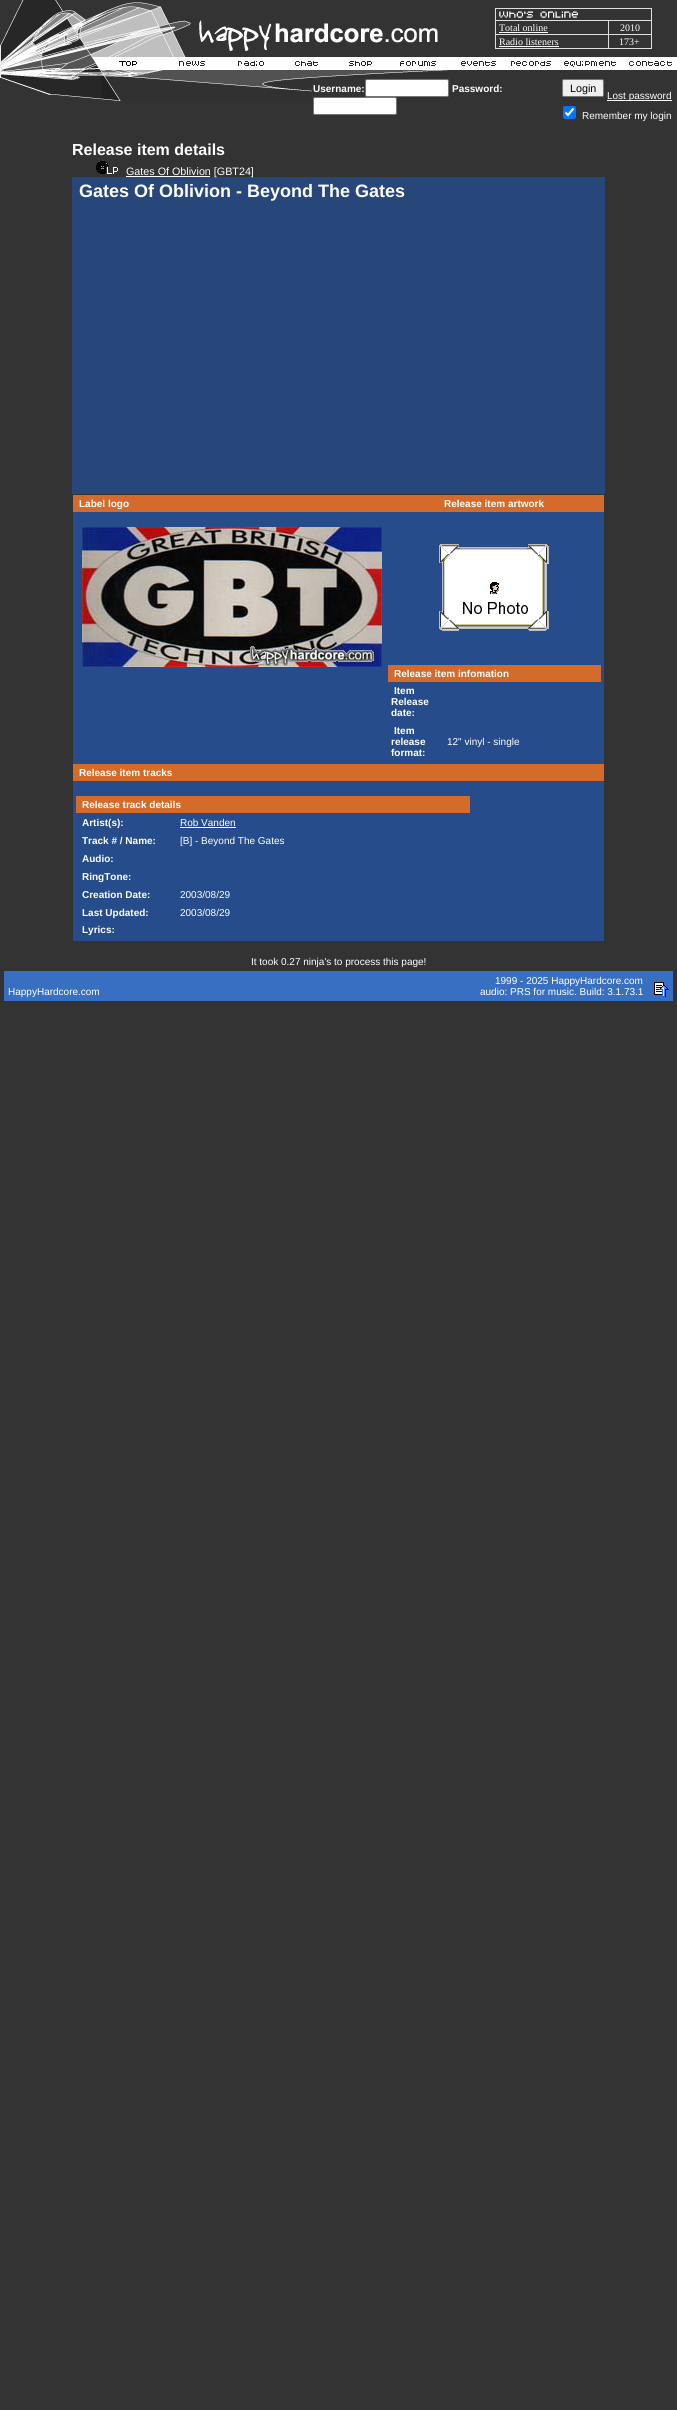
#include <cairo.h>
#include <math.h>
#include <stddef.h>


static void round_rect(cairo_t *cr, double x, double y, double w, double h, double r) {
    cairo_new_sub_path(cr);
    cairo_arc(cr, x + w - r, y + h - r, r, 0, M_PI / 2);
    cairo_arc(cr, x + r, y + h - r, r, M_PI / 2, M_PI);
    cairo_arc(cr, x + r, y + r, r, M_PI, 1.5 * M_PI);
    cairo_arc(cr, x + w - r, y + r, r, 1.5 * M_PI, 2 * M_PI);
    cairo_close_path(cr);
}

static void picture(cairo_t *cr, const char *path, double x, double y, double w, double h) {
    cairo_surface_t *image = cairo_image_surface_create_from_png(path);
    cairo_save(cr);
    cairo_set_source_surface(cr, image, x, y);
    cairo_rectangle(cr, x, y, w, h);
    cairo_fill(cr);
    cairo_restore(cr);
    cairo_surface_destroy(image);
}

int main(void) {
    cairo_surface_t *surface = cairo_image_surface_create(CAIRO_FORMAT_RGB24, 677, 2410);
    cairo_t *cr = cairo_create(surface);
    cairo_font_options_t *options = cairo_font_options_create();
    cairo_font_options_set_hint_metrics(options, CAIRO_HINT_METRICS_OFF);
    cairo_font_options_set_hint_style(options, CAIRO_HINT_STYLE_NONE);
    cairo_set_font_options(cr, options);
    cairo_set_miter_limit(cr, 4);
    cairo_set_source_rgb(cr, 0.2, 0.2, 0.2);
    cairo_paint(cr);
    picture(cr, "img1.png", 0, 0, 101, 100);
    picture(cr, "img2.png", 101, 2, 337, 55);
    cairo_set_source_rgb(cr, 0.875, 0.875, 0.875);
    cairo_rectangle(cr, 495, 8, 157, 41);
    cairo_fill(cr);
    cairo_set_source_rgb(cr, 0.2, 0.2, 0.2);
    cairo_rectangle(cr, 496, 9, 155, 11);
    cairo_fill(cr);
    picture(cr, "img3.png", 499, 11, 79, 7);
    cairo_rectangle(cr, 496, 21, 112, 13);
    cairo_fill(cr);
    cairo_select_font_face(cr, "Liberation Serif", CAIRO_FONT_SLANT_NORMAL, CAIRO_FONT_WEIGHT_NORMAL);
    cairo_set_font_size(cr, 10);
    cairo_set_source_rgb(cr, 1, 1, 1);
    cairo_move_to(cr, 499, 31);
    cairo_show_text(cr, "Total online");
    cairo_rectangle(cr, 499, 32, 49, 1);
    cairo_fill(cr);
    cairo_set_source_rgb(cr, 0.2, 0.2, 0.2);
    cairo_rectangle(cr, 609, 21, 42, 13);
    cairo_fill(cr);
    cairo_set_source_rgb(cr, 1, 1, 1);
    cairo_move_to(cr, 620, 31);
    cairo_show_text(cr, "2010");
    cairo_set_source_rgb(cr, 0.2, 0.2, 0.2);
    cairo_rectangle(cr, 496, 35, 112, 13);
    cairo_fill(cr);
    cairo_set_source_rgb(cr, 1, 1, 1);
    cairo_move_to(cr, 499, 45);
    cairo_show_text(cr, "Radio listeners");
    cairo_rectangle(cr, 499, 46, 60, 1);
    cairo_fill(cr);
    cairo_set_source_rgb(cr, 0.2, 0.2, 0.2);
    cairo_rectangle(cr, 609, 35, 42, 13);
    cairo_fill(cr);
    cairo_set_source_rgb(cr, 1, 1, 1);
    cairo_move_to(cr, 619, 45);
    cairo_show_text(cr, "173+");
    cairo_rectangle(cr, 101, 57, 576, 13);
    cairo_fill(cr);
    picture(cr, "img4.png", 119, 61, 18, 5);
    picture(cr, "img5.png", 179, 61, 26, 5);
    picture(cr, "img6.png", 238, 61, 26, 5);
    picture(cr, "img7.png", 295, 61, 23, 5);
    picture(cr, "img8.png", 349, 61, 23, 5);
    picture(cr, "img9.png", 400, 61, 36, 5);
    picture(cr, "img10.png", 461, 61, 35, 5);
    picture(cr, "img11.png", 511, 61, 40, 5);
    picture(cr, "img12.png", 564, 61, 52, 6);
    picture(cr, "img13.png", 629, 61, 43, 5);
    picture(cr, "img14.png", 101, 70, 211, 31);
    picture(cr, "img15.png", 312, 70, 136, 8);
    cairo_select_font_face(cr, "Liberation Sans", CAIRO_FONT_SLANT_NORMAL, CAIRO_FONT_WEIGHT_BOLD);
    cairo_move_to(cr, 313, 92);
    cairo_show_text(cr, "Username:");
    round_rect(cr, 365.5, 79.5, 83, 17, 1.5);
    cairo_fill_preserve(cr);
    cairo_set_source_rgb(cr, 0.463, 0.463, 0.463);
    cairo_set_line_width(cr, 1);
    cairo_stroke(cr);
    cairo_set_source_rgb(cr, 1, 1, 1);
    cairo_move_to(cr, 452, 92);
    cairo_show_text(cr, "Password:");
    round_rect(cr, 313.5, 97.5, 83, 17, 1.5);
    cairo_fill_preserve(cr);
    cairo_set_source_rgb(cr, 0.463, 0.463, 0.463);
    cairo_stroke(cr);
    cairo_set_source_rgb(cr, 0.937, 0.937, 0.937);
    round_rect(cr, 562.5, 79.5, 41, 17, 1.5);
    cairo_fill_preserve(cr);
    cairo_set_source_rgb(cr, 0.463, 0.463, 0.463);
    cairo_stroke(cr);
    cairo_select_font_face(cr, "Liberation Sans", CAIRO_FONT_SLANT_NORMAL, CAIRO_FONT_WEIGHT_NORMAL);
    cairo_set_font_size(cr, 10.75);
    cairo_set_source_rgb(cr, 0, 0, 0);
    cairo_move_to(cr, 570, 92);
    cairo_show_text(cr, "Login");
    cairo_set_source_rgb(cr, 1, 1, 1);
    cairo_rectangle(cr, 607, 100, 65, 1);
    cairo_fill(cr);
    cairo_set_font_size(cr, 10);
    cairo_move_to(cr, 607, 99);
    cairo_show_text(cr, "Lost password");
    cairo_set_source_rgb(cr, 0, 0.459, 1);
    round_rect(cr, 563, 106, 13, 13, 2);
    cairo_fill(cr);
    cairo_new_path(cr);
    cairo_move_to(cr, 565.5, 112.5);
    cairo_line_to(cr, 568, 115);
    cairo_line_to(cr, 573.5, 108.5);
    cairo_set_source_rgb(cr, 1, 1, 1);
    cairo_set_line_width(cr, 2.1);
    cairo_stroke(cr);
    cairo_move_to(cr, 582, 119);
    cairo_show_text(cr, "Remember my login");
    cairo_select_font_face(cr, "Liberation Sans", CAIRO_FONT_SLANT_NORMAL, CAIRO_FONT_WEIGHT_BOLD);
    cairo_set_font_size(cr, 16);
    cairo_move_to(cr, 72, 155);
    cairo_show_text(cr, "Release item details");
    picture(cr, "img16.png", 96, 161, 22, 13);
    cairo_rectangle(cr, 126, 176, 84, 1);
    cairo_fill(cr);
    cairo_set_source_rgb(cr, 0.153, 0.275, 0.478);
    cairo_rectangle(cr, 72, 177, 533, 317);
    cairo_fill(cr);
    cairo_select_font_face(cr, "Liberation Sans", CAIRO_FONT_SLANT_NORMAL, CAIRO_FONT_WEIGHT_NORMAL);
    cairo_set_font_size(cr, 10.75);
    cairo_set_source_rgb(cr, 1, 1, 1);
    cairo_move_to(cr, 126, 175);
    cairo_show_text(cr, "Gates Of Oblivion [GBT24]");
    cairo_select_font_face(cr, "Liberation Sans", CAIRO_FONT_SLANT_NORMAL, CAIRO_FONT_WEIGHT_BOLD);
    cairo_set_font_size(cr, 18);
    cairo_move_to(cr, 79, 197);
    cairo_show_text(cr, "Gates Of Oblivion - Beyond The Gates");
    cairo_set_source_rgb(cr, 0.831, 0.42, 0.165);
    cairo_rectangle(cr, 73, 495, 531, 17);
    cairo_fill(cr);
    cairo_set_font_size(cr, 10);
    cairo_set_source_rgb(cr, 1, 1, 1);
    cairo_move_to(cr, 79, 507);
    cairo_show_text(cr, "Label logo");
    cairo_move_to(cr, 444, 507);
    cairo_show_text(cr, "Release item artwork");
    cairo_set_source_rgb(cr, 0.149, 0.298, 0.545);
    cairo_rectangle(cr, 73, 512, 531, 252);
    cairo_fill(cr);
    picture(cr, "img17.png", 82, 527, 300, 140);
    picture(cr, "img18.png", 439, 544, 110, 87);
    cairo_set_source_rgb(cr, 0.831, 0.42, 0.165);
    cairo_rectangle(cr, 388, 665, 213, 17);
    cairo_fill(cr);
    cairo_set_source_rgb(cr, 1, 1, 1);
    cairo_move_to(cr, 394, 677);
    cairo_show_text(cr, "Release item infomation");
    cairo_move_to(cr, 394, 694);
    cairo_show_text(cr, "Item");
    cairo_move_to(cr, 391, 705);
    cairo_show_text(cr, "Release");
    cairo_move_to(cr, 391, 716);
    cairo_show_text(cr, "date:");
    cairo_move_to(cr, 394, 734);
    cairo_show_text(cr, "Item");
    cairo_move_to(cr, 391, 745);
    cairo_show_text(cr, "release");
    cairo_move_to(cr, 391, 756);
    cairo_show_text(cr, "format:");
    cairo_select_font_face(cr, "Liberation Sans", CAIRO_FONT_SLANT_NORMAL, CAIRO_FONT_WEIGHT_NORMAL);
    cairo_move_to(cr, 447, 745);
    cairo_show_text(cr, "12\" vinyl - single");
    cairo_set_source_rgb(cr, 0.831, 0.42, 0.165);
    cairo_rectangle(cr, 73, 764, 531, 17);
    cairo_fill(cr);
    cairo_select_font_face(cr, "Liberation Sans", CAIRO_FONT_SLANT_NORMAL, CAIRO_FONT_WEIGHT_BOLD);
    cairo_set_source_rgb(cr, 1, 1, 1);
    cairo_move_to(cr, 79, 776);
    cairo_show_text(cr, "Release item tracks");
    cairo_set_source_rgb(cr, 0.149, 0.298, 0.545);
    cairo_rectangle(cr, 73, 781, 531, 160);
    cairo_fill(cr);
    cairo_set_source_rgb(cr, 0.831, 0.42, 0.165);
    cairo_rectangle(cr, 76, 796, 394, 17);
    cairo_fill(cr);
    cairo_set_source_rgb(cr, 1, 1, 1);
    cairo_move_to(cr, 82, 808);
    cairo_show_text(cr, "Release track details");
    cairo_move_to(cr, 82, 826);
    cairo_show_text(cr, "Artist(s):");
    cairo_select_font_face(cr, "Liberation Sans", CAIRO_FONT_SLANT_NORMAL, CAIRO_FONT_WEIGHT_NORMAL);
    cairo_move_to(cr, 180, 826);
    cairo_show_text(cr, "Rob Vanden");
    cairo_rectangle(cr, 180, 827, 56, 1);
    cairo_fill(cr);
    cairo_select_font_face(cr, "Liberation Sans", CAIRO_FONT_SLANT_NORMAL, CAIRO_FONT_WEIGHT_BOLD);
    cairo_move_to(cr, 82, 844);
    cairo_show_text(cr, "Track # / Name:");
    cairo_select_font_face(cr, "Liberation Sans", CAIRO_FONT_SLANT_NORMAL, CAIRO_FONT_WEIGHT_NORMAL);
    cairo_move_to(cr, 180, 844);
    cairo_show_text(cr, "[B] - Beyond The Gates");
    cairo_select_font_face(cr, "Liberation Sans", CAIRO_FONT_SLANT_NORMAL, CAIRO_FONT_WEIGHT_BOLD);
    cairo_move_to(cr, 82, 862);
    cairo_show_text(cr, "Audio:");
    cairo_move_to(cr, 82, 880);
    cairo_show_text(cr, "RingTone:");
    cairo_move_to(cr, 82, 898);
    cairo_show_text(cr, "Creation Date:");
    cairo_select_font_face(cr, "Liberation Sans", CAIRO_FONT_SLANT_NORMAL, CAIRO_FONT_WEIGHT_NORMAL);
    cairo_move_to(cr, 180, 898);
    cairo_show_text(cr, "2003/08/29");
    cairo_select_font_face(cr, "Liberation Sans", CAIRO_FONT_SLANT_NORMAL, CAIRO_FONT_WEIGHT_BOLD);
    cairo_move_to(cr, 82, 916);
    cairo_show_text(cr, "Last Updated:");
    cairo_select_font_face(cr, "Liberation Sans", CAIRO_FONT_SLANT_NORMAL, CAIRO_FONT_WEIGHT_NORMAL);
    cairo_move_to(cr, 180, 916);
    cairo_show_text(cr, "2003/08/29");
    cairo_select_font_face(cr, "Liberation Sans", CAIRO_FONT_SLANT_NORMAL, CAIRO_FONT_WEIGHT_BOLD);
    cairo_move_to(cr, 82, 933);
    cairo_show_text(cr, "Lyrics:");
    cairo_select_font_face(cr, "Liberation Sans", CAIRO_FONT_SLANT_NORMAL, CAIRO_FONT_WEIGHT_NORMAL);
    cairo_move_to(cr, 251, 965);
    cairo_show_text(cr, "It took 0.27 ninja's to process this page!");
    cairo_set_source_rgb(cr, 0.224, 0.435, 0.757);
    cairo_rectangle(cr, 4, 971, 669, 30);
    cairo_fill(cr);
    cairo_set_source_rgb(cr, 1, 1, 1);
    cairo_move_to(cr, 8, 995);
    cairo_show_text(cr, "HappyHardcore.com");
    cairo_move_to(cr, 495, 984);
    cairo_show_text(cr, "1999 - 2025 HappyHardcore.com");
    cairo_move_to(cr, 480, 995);
    cairo_show_text(cr, "audio: PRS for music. Build: 3.1.73.1");
    picture(cr, "img19.png", 654, 982, 15, 15);
    cairo_surface_write_to_png(surface, "page.png");
    cairo_font_options_destroy(options);
    cairo_destroy(cr);
    cairo_surface_destroy(surface);
    return 0;
}
